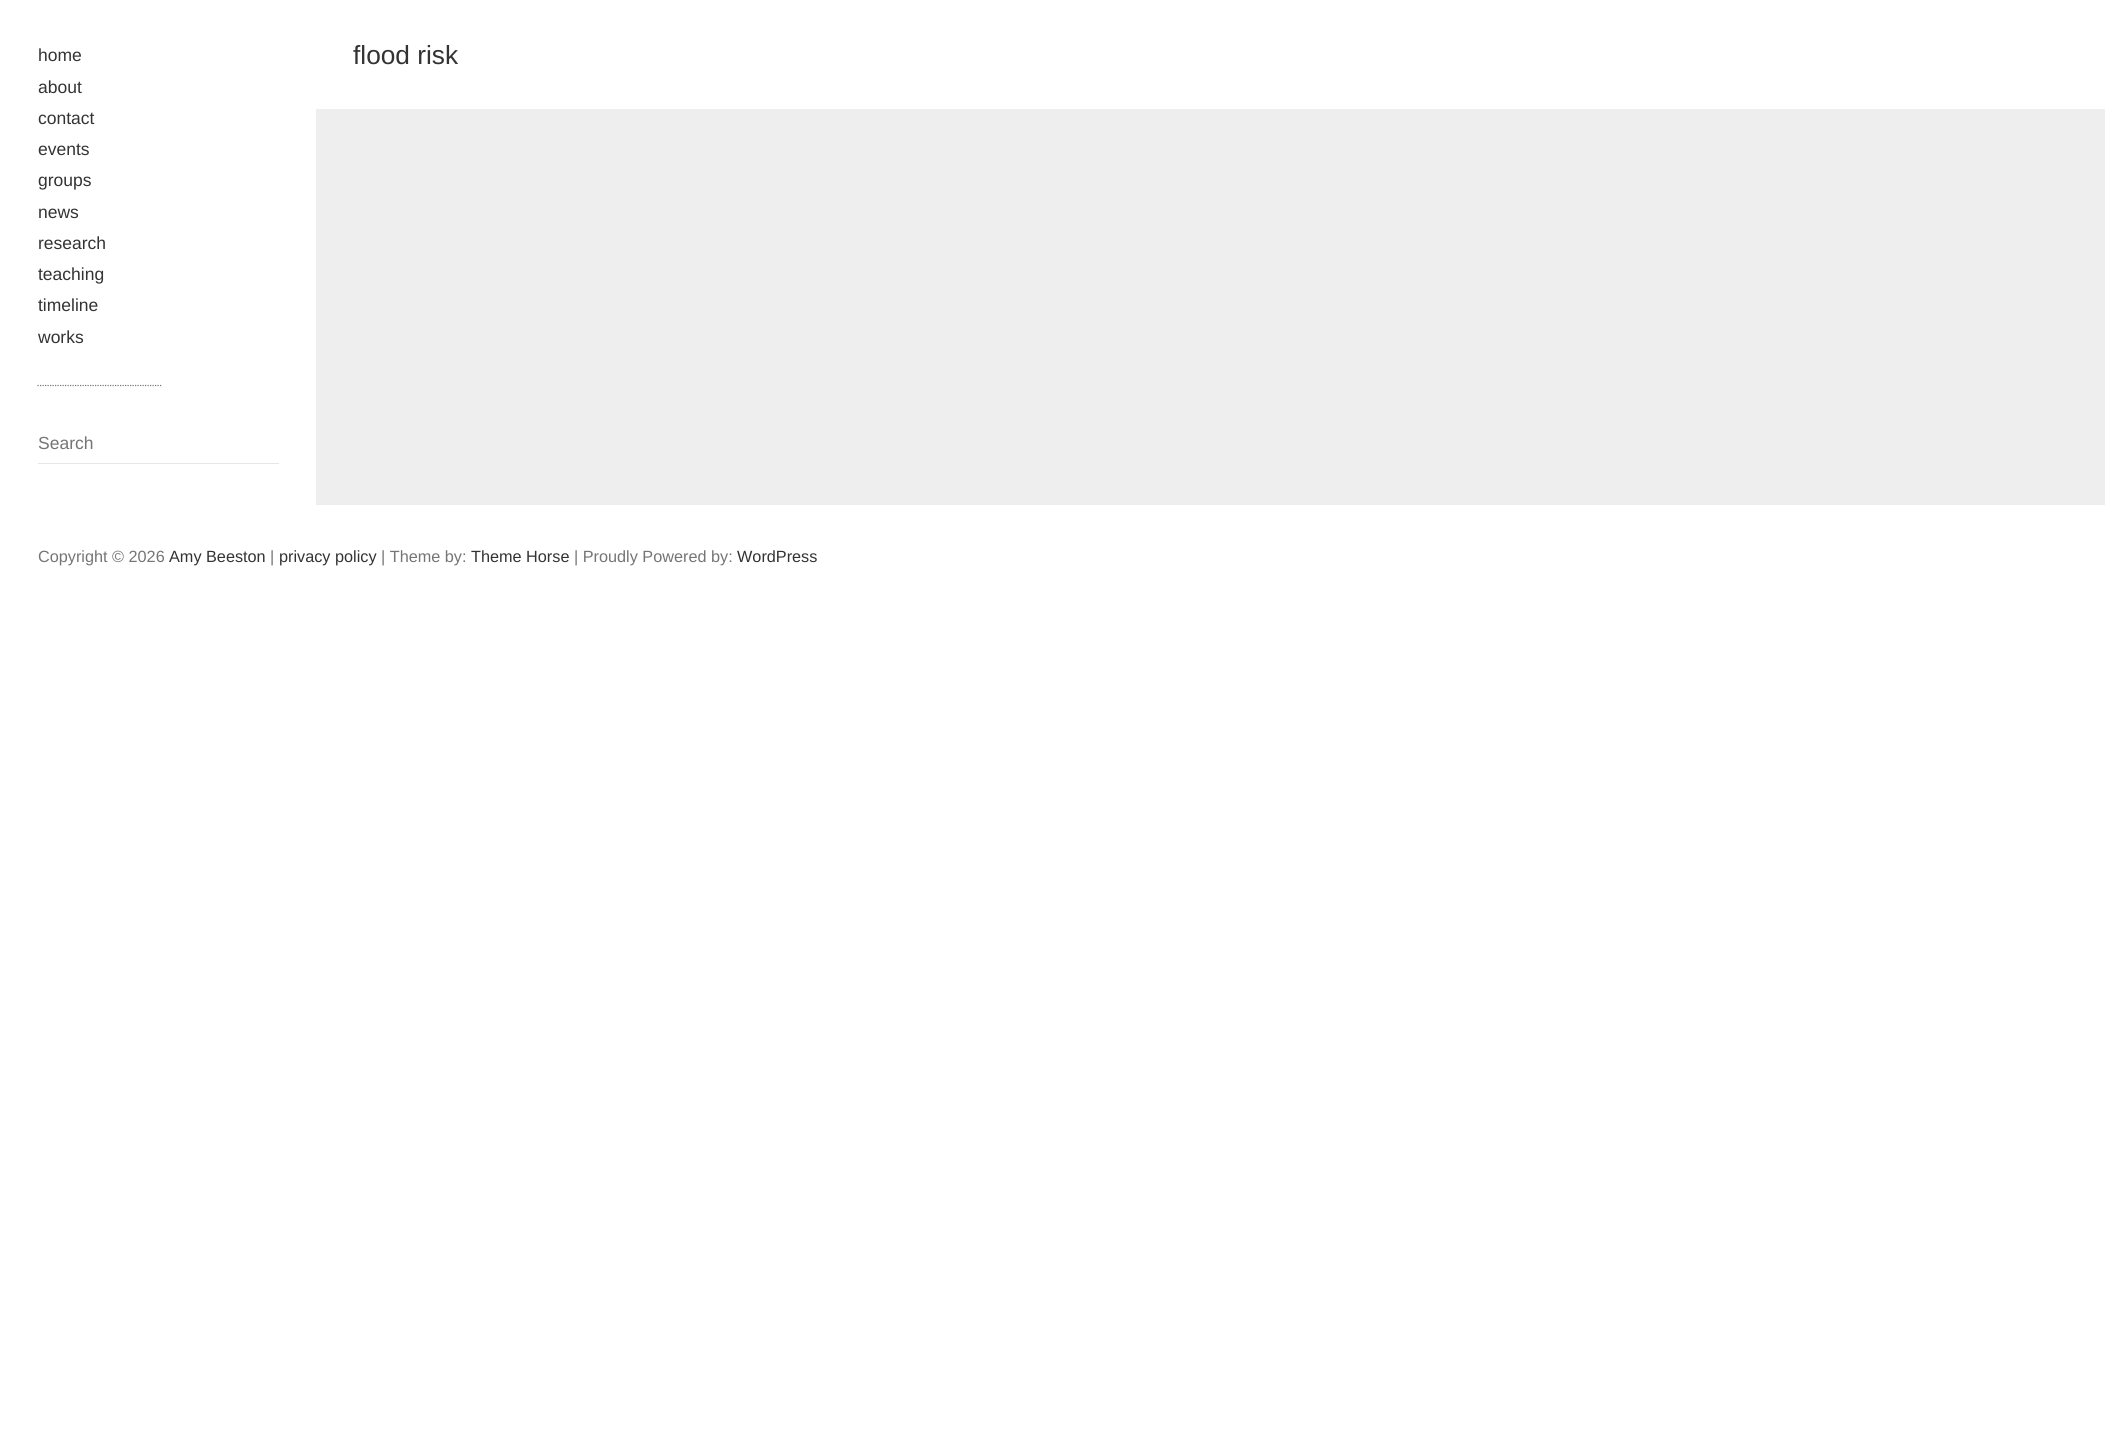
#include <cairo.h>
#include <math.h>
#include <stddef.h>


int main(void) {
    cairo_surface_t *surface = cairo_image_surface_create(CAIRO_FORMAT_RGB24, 2105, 1441);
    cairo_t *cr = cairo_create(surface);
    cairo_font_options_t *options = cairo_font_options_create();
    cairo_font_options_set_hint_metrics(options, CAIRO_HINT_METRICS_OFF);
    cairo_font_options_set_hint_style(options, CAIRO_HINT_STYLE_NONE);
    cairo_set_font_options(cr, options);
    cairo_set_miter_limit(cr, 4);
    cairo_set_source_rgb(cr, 1, 1, 1);
    cairo_paint(cr);
    cairo_set_source_rgb(cr, 0.933, 0.933, 0.933);
    cairo_rectangle(cr, 316, 109, 1789, 396);
    cairo_fill(cr);
    cairo_select_font_face(cr, "Liberation Sans", CAIRO_FONT_SLANT_NORMAL, CAIRO_FONT_WEIGHT_NORMAL);
    cairo_set_font_size(cr, 17.5);
    cairo_set_source_rgb(cr, 0.2, 0.2, 0.2);
    cairo_move_to(cr, 38, 61);
    cairo_show_text(cr, "home");
    cairo_move_to(cr, 38, 93);
    cairo_show_text(cr, "about");
    cairo_move_to(cr, 38, 124);
    cairo_show_text(cr, "contact");
    cairo_move_to(cr, 38, 155);
    cairo_show_text(cr, "events");
    cairo_move_to(cr, 38, 186);
    cairo_show_text(cr, "groups");
    cairo_move_to(cr, 38, 218);
    cairo_show_text(cr, "news");
    cairo_move_to(cr, 38, 249);
    cairo_show_text(cr, "research");
    cairo_move_to(cr, 38, 280);
    cairo_show_text(cr, "teaching");
    cairo_move_to(cr, 38, 311);
    cairo_show_text(cr, "timeline");
    cairo_move_to(cr, 38, 343);
    cairo_show_text(cr, "works");
    cairo_new_path(cr);
    cairo_move_to(cr, 37.5, 385.5);
    cairo_line_to(cr, 162.5, 385.5);
    cairo_set_source_rgb(cr, 0.467, 0.467, 0.467);
    cairo_set_line_width(cr, 1.2);
    cairo_set_dash(cr, (double[]){1.25, 1.25}, 2, 0);
    cairo_stroke(cr);
    cairo_set_font_size(cr, 26.25);
    cairo_set_source_rgb(cr, 0.2, 0.2, 0.2);
    cairo_move_to(cr, 353, 64);
    cairo_show_text(cr, "flood risk");
    cairo_set_source_rgb(cr, 0.902, 0.902, 0.902);
    cairo_rectangle(cr, 38, 463, 241, 1);
    cairo_fill(cr);
    cairo_set_font_size(cr, 17.5);
    cairo_set_source_rgb(cr, 0.459, 0.459, 0.459);
    cairo_move_to(cr, 38, 449);
    cairo_show_text(cr, "Search");
    cairo_set_font_size(cr, 16.25);
    cairo_move_to(cr, 38, 562);
    cairo_show_text(cr, "Copyright © 2026");
    cairo_set_source_rgb(cr, 0.2, 0.2, 0.2);
    cairo_move_to(cr, 169, 562);
    cairo_show_text(cr, "Amy Beeston");
    cairo_set_source_rgb(cr, 0.459, 0.459, 0.459);
    cairo_move_to(cr, 270, 562);
    cairo_show_text(cr, "|");
    cairo_set_source_rgb(cr, 0.2, 0.2, 0.2);
    cairo_move_to(cr, 279, 562);
    cairo_show_text(cr, "privacy policy");
    cairo_set_source_rgb(cr, 0.459, 0.459, 0.459);
    cairo_move_to(cr, 381, 562);
    cairo_show_text(cr, "| Theme by:");
    cairo_set_source_rgb(cr, 0.2, 0.2, 0.2);
    cairo_move_to(cr, 471, 562);
    cairo_show_text(cr, "Theme Horse");
    cairo_set_source_rgb(cr, 0.459, 0.459, 0.459);
    cairo_move_to(cr, 574, 562);
    cairo_show_text(cr, "| Proudly Powered by:");
    cairo_set_source_rgb(cr, 0.2, 0.2, 0.2);
    cairo_move_to(cr, 737, 562);
    cairo_show_text(cr, "WordPress");
    cairo_surface_write_to_png(surface, "page.png");
    cairo_font_options_destroy(options);
    cairo_destroy(cr);
    cairo_surface_destroy(surface);
    return 0;
}
